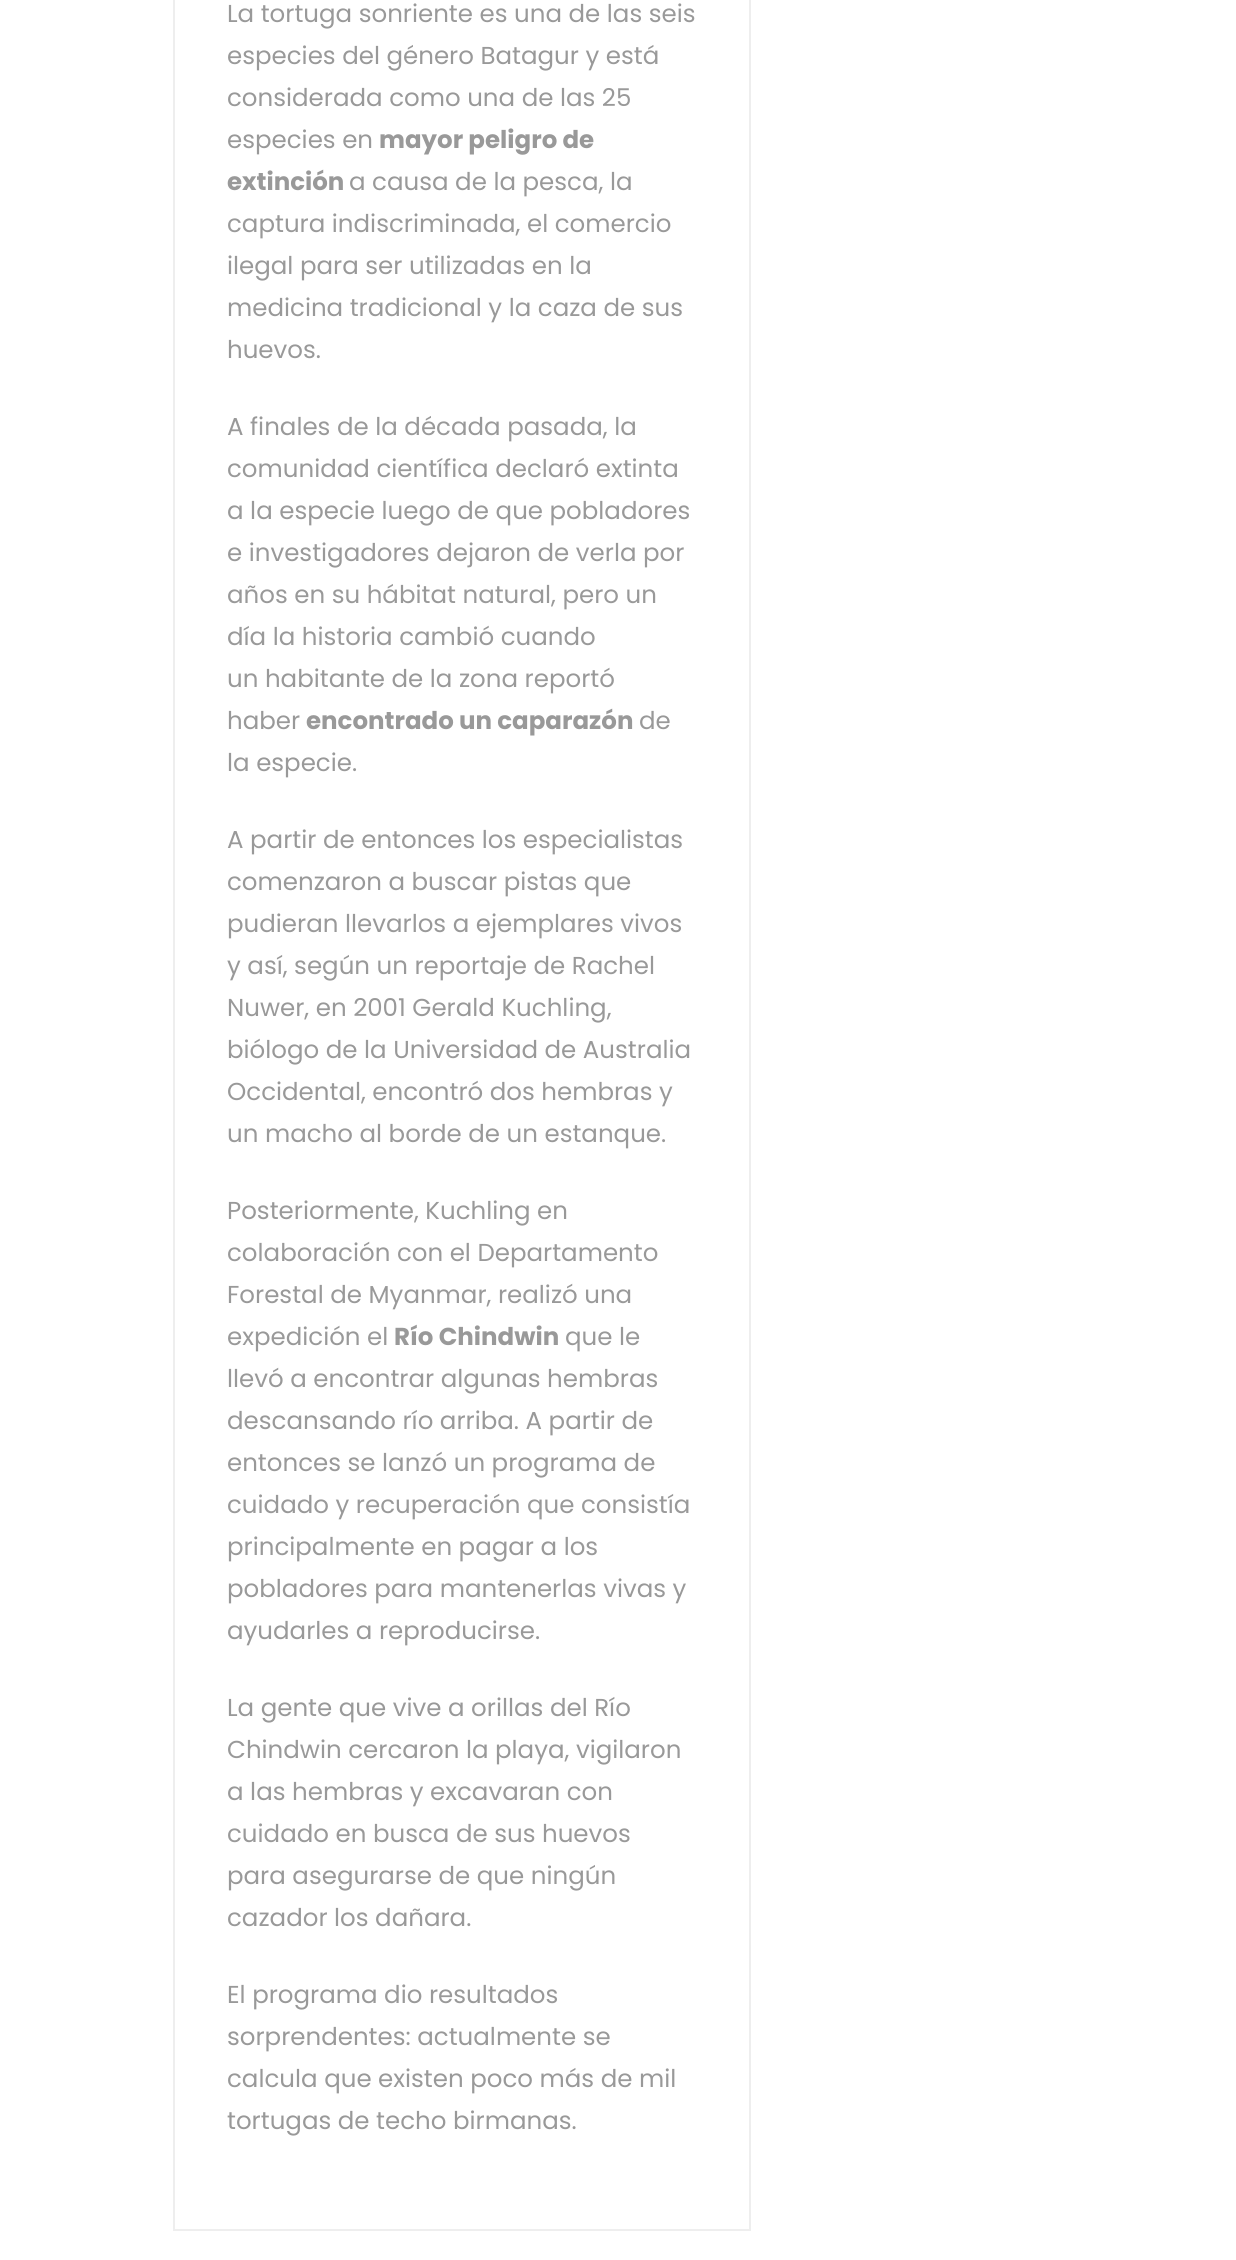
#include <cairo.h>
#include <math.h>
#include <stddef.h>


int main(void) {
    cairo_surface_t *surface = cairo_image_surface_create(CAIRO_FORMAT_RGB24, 1236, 2260);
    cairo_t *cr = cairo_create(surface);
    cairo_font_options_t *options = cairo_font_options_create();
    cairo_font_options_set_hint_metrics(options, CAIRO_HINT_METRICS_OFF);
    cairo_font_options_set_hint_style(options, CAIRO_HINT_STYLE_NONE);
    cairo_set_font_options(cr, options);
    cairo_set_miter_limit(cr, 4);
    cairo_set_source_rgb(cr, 1, 1, 1);
    cairo_paint(cr);
    cairo_rectangle(cr, 174, -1, 576, 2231);
    cairo_set_source_rgb(cr, 0.933, 0.933, 0.933);
    cairo_stroke(cr);
    cairo_select_font_face(cr, "Poppins", CAIRO_FONT_SLANT_NORMAL, CAIRO_FONT_WEIGHT_NORMAL);
    cairo_set_font_size(cr, 24.5);
    cairo_set_source_rgb(cr, 0.6, 0.6, 0.6);
    cairo_move_to(cr, 227, 22);
    cairo_show_text(cr, "La tortuga sonriente es una de las seis");
    cairo_move_to(cr, 227, 64);
    cairo_show_text(cr, "especies del género Batagur y está");
    cairo_move_to(cr, 227, 106);
    cairo_show_text(cr, "considerada como una de las 25");
    cairo_move_to(cr, 227, 148);
    cairo_show_text(cr, "especies en");
    cairo_select_font_face(cr, "Poppins", CAIRO_FONT_SLANT_NORMAL, CAIRO_FONT_WEIGHT_BOLD);
    cairo_move_to(cr, 379, 148);
    cairo_show_text(cr, "mayor peligro de");
    cairo_move_to(cr, 227, 190);
    cairo_show_text(cr, "extinción");
    cairo_select_font_face(cr, "Poppins", CAIRO_FONT_SLANT_NORMAL, CAIRO_FONT_WEIGHT_NORMAL);
    cairo_move_to(cr, 349, 190);
    cairo_show_text(cr, "a causa de la pesca, la");
    cairo_move_to(cr, 227, 232);
    cairo_show_text(cr, "captura indiscriminada, el comercio");
    cairo_move_to(cr, 227, 274);
    cairo_show_text(cr, "ilegal para ser utilizadas en la");
    cairo_move_to(cr, 227, 316);
    cairo_show_text(cr, "medicina tradicional y la caza de sus");
    cairo_move_to(cr, 227, 358);
    cairo_show_text(cr, "huevos.");
    cairo_move_to(cr, 227, 435);
    cairo_show_text(cr, "A finales de la década pasada, la");
    cairo_move_to(cr, 227, 477);
    cairo_show_text(cr, "comunidad científica declaró extinta");
    cairo_move_to(cr, 227, 519);
    cairo_show_text(cr, "a la especie luego de que pobladores");
    cairo_move_to(cr, 227, 561);
    cairo_show_text(cr, "e investigadores dejaron de verla por");
    cairo_move_to(cr, 227, 603);
    cairo_show_text(cr, "años en su hábitat natural, pero un");
    cairo_move_to(cr, 227, 645);
    cairo_show_text(cr, "día la historia cambió cuando");
    cairo_move_to(cr, 227, 687);
    cairo_show_text(cr, "un habitante de la zona reportó");
    cairo_move_to(cr, 227, 729);
    cairo_show_text(cr, "haber");
    cairo_select_font_face(cr, "Poppins", CAIRO_FONT_SLANT_NORMAL, CAIRO_FONT_WEIGHT_BOLD);
    cairo_move_to(cr, 306, 729);
    cairo_show_text(cr, "encontrado un caparazón");
    cairo_select_font_face(cr, "Poppins", CAIRO_FONT_SLANT_NORMAL, CAIRO_FONT_WEIGHT_NORMAL);
    cairo_move_to(cr, 639, 729);
    cairo_show_text(cr, "de");
    cairo_move_to(cr, 227, 771);
    cairo_show_text(cr, "la especie.");
    cairo_move_to(cr, 227, 848);
    cairo_show_text(cr, "A partir de entonces los especialistas");
    cairo_move_to(cr, 227, 890);
    cairo_show_text(cr, "comenzaron a buscar pistas que");
    cairo_move_to(cr, 227, 932);
    cairo_show_text(cr, "pudieran llevarlos a ejemplares vivos");
    cairo_move_to(cr, 227, 974);
    cairo_show_text(cr, "y así, según un reportaje de Rachel");
    cairo_move_to(cr, 227, 1016);
    cairo_show_text(cr, "Nuwer, en 2001 Gerald Kuchling,");
    cairo_move_to(cr, 227, 1058);
    cairo_show_text(cr, "biólogo de la Universidad de Australia");
    cairo_move_to(cr, 227, 1100);
    cairo_show_text(cr, "Occidental, encontró dos hembras y");
    cairo_move_to(cr, 227, 1142);
    cairo_show_text(cr, "un macho al borde de un estanque.");
    cairo_move_to(cr, 227, 1219);
    cairo_show_text(cr, "Posteriormente, Kuchling en");
    cairo_move_to(cr, 227, 1261);
    cairo_show_text(cr, "colaboración con el Departamento");
    cairo_move_to(cr, 227, 1303);
    cairo_show_text(cr, "Forestal de Myanmar, realizó una");
    cairo_move_to(cr, 227, 1345);
    cairo_show_text(cr, "expedición el");
    cairo_select_font_face(cr, "Poppins", CAIRO_FONT_SLANT_NORMAL, CAIRO_FONT_WEIGHT_BOLD);
    cairo_move_to(cr, 394, 1345);
    cairo_show_text(cr, "Río Chindwin");
    cairo_select_font_face(cr, "Poppins", CAIRO_FONT_SLANT_NORMAL, CAIRO_FONT_WEIGHT_NORMAL);
    cairo_move_to(cr, 565, 1345);
    cairo_show_text(cr, "que le");
    cairo_move_to(cr, 227, 1387);
    cairo_show_text(cr, "llevó a encontrar algunas hembras");
    cairo_move_to(cr, 227, 1429);
    cairo_show_text(cr, "descansando río arriba. A partir de");
    cairo_move_to(cr, 227, 1471);
    cairo_show_text(cr, "entonces se lanzó un programa de");
    cairo_move_to(cr, 227, 1513);
    cairo_show_text(cr, "cuidado y recuperación que consistía");
    cairo_move_to(cr, 227, 1555);
    cairo_show_text(cr, "principalmente en pagar a los");
    cairo_move_to(cr, 227, 1597);
    cairo_show_text(cr, "pobladores para mantenerlas vivas y");
    cairo_move_to(cr, 227, 1639);
    cairo_show_text(cr, "ayudarles a reproducirse.");
    cairo_move_to(cr, 227, 1716);
    cairo_show_text(cr, "La gente que vive a orillas del Río");
    cairo_move_to(cr, 227, 1758);
    cairo_show_text(cr, "Chindwin cercaron la playa, vigilaron");
    cairo_move_to(cr, 227, 1800);
    cairo_show_text(cr, "a las hembras y excavaran con");
    cairo_move_to(cr, 227, 1842);
    cairo_show_text(cr, "cuidado en busca de sus huevos");
    cairo_move_to(cr, 227, 1884);
    cairo_show_text(cr, "para asegurarse de que ningún");
    cairo_move_to(cr, 227, 1926);
    cairo_show_text(cr, "cazador los dañara.");
    cairo_move_to(cr, 227, 2003);
    cairo_show_text(cr, "El programa dio resultados");
    cairo_move_to(cr, 227, 2045);
    cairo_show_text(cr, "sorprendentes: actualmente se");
    cairo_move_to(cr, 227, 2087);
    cairo_show_text(cr, "calcula que existen poco más de mil");
    cairo_move_to(cr, 227, 2129);
    cairo_show_text(cr, "tortugas de techo birmanas.");
    cairo_surface_write_to_png(surface, "page.png");
    cairo_font_options_destroy(options);
    cairo_destroy(cr);
    cairo_surface_destroy(surface);
    return 0;
}
